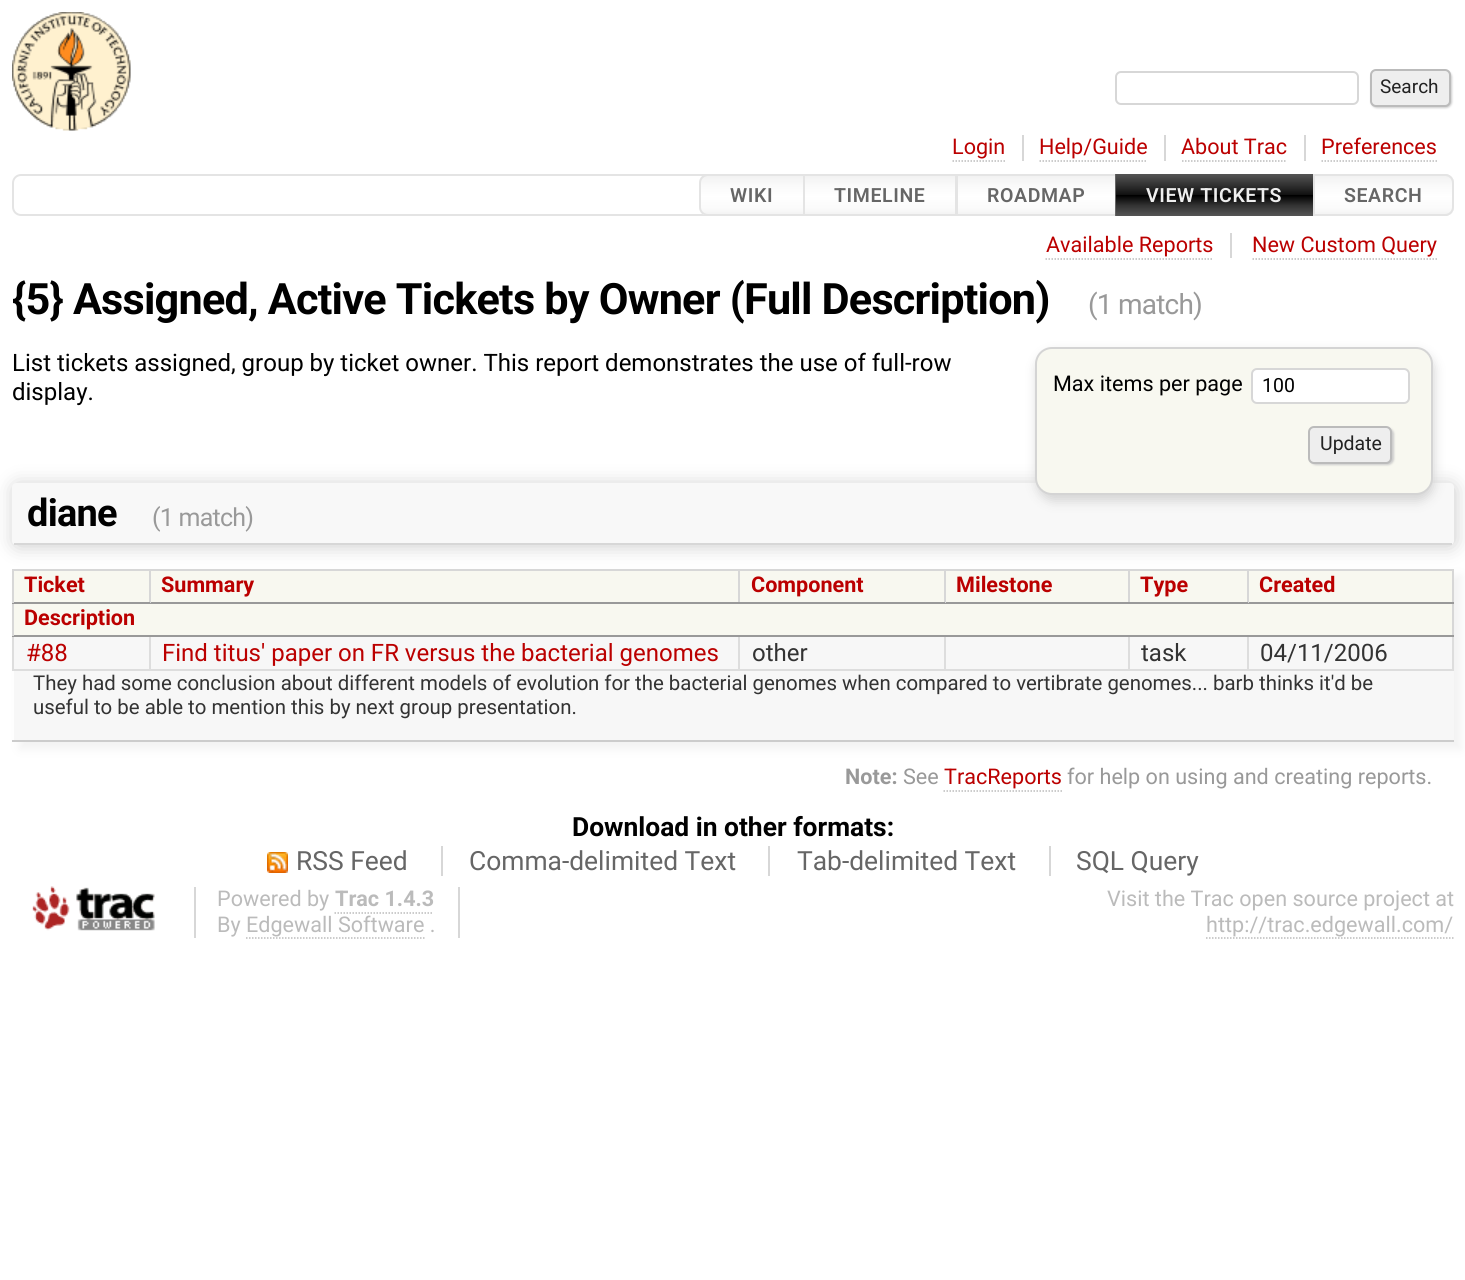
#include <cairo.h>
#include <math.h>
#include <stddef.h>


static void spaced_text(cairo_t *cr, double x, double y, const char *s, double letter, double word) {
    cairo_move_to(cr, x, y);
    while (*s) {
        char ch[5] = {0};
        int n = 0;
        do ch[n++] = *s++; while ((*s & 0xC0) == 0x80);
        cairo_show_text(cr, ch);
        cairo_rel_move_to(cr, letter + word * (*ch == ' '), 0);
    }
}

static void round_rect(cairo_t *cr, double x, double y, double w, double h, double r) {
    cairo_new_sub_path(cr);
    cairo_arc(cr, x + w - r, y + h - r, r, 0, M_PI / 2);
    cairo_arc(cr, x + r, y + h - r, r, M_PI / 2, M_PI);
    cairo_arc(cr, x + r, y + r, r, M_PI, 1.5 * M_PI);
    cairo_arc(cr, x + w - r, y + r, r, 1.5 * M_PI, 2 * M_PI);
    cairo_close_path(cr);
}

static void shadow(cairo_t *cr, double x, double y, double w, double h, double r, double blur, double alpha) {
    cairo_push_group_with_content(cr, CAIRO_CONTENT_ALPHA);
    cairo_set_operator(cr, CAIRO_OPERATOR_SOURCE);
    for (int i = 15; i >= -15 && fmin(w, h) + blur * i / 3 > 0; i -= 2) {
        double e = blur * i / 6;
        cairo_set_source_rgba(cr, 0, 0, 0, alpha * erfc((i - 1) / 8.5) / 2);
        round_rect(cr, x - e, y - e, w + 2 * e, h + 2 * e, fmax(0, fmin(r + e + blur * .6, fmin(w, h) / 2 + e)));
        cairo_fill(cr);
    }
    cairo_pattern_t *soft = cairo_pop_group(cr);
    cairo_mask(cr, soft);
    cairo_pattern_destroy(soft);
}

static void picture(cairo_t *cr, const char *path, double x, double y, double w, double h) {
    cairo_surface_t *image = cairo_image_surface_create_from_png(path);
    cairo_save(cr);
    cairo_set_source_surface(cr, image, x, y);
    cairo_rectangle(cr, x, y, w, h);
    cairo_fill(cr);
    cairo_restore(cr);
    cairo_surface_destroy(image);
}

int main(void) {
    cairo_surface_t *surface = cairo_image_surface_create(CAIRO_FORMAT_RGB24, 1465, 1280);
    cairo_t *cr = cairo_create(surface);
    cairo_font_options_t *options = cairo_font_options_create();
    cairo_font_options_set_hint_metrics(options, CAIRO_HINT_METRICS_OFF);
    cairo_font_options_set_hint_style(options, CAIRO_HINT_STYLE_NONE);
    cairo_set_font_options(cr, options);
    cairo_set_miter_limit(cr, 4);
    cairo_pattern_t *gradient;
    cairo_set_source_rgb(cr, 1, 1, 1);
    cairo_paint(cr);
    picture(cr, "img1.png", 12, 12, 119, 119);
    round_rect(cr, 1116, 72, 242, 32, 5);
    cairo_set_source_rgb(cr, 0.843, 0.843, 0.843);
    cairo_stroke(cr);
    cairo_set_source_rgb(cr, 0.8, 0.8, 0.8);
    shadow(cr, 1371, 71, 81, 37, 6, 1, 1);
    cairo_set_source_rgb(cr, 0.933, 0.933, 0.933);
    round_rect(cr, 1371, 70, 79, 36, 5);
    cairo_fill_preserve(cr);
    cairo_set_source_rgb(cr, 0.733, 0.733, 0.733);
    cairo_stroke(cr);
    cairo_select_font_face(cr, "Roboto", CAIRO_FONT_SLANT_NORMAL, CAIRO_FONT_WEIGHT_NORMAL);
    cairo_set_font_size(cr, 19);
    cairo_set_source_rgb(cr, 0.133, 0.133, 0.133);
    cairo_move_to(cr, 1380, 93);
    cairo_show_text(cr, "Search");
    cairo_set_source_rgb(cr, 0.843, 0.843, 0.843);
    cairo_rectangle(cr, 1022, 135, 2, 26);
    cairo_fill(cr);
    cairo_set_font_size(cr, 21.6);
    cairo_set_source_rgb(cr, 0.733, 0, 0);
    cairo_move_to(cr, 952, 154);
    cairo_show_text(cr, "Login");
    cairo_new_path(cr);
    cairo_move_to(cr, 952.5, 161);
    cairo_line_to(cr, 1005, 161);
    cairo_set_source_rgb(cr, 0.733, 0.733, 0.733);
    cairo_set_line_width(cr, 1.5);
    cairo_set_dash(cr, (double[]){1.5, 1.5}, 2, 0);
    cairo_stroke(cr);
    cairo_set_source_rgb(cr, 0.843, 0.843, 0.843);
    cairo_rectangle(cr, 1164, 135, 2, 26);
    cairo_fill(cr);
    cairo_set_source_rgb(cr, 0.733, 0, 0);
    cairo_move_to(cr, 1039, 154);
    cairo_show_text(cr, "Help/Guide");
    cairo_new_path(cr);
    cairo_move_to(cr, 1039.5, 161);
    cairo_line_to(cr, 1147.5, 161);
    cairo_set_source_rgb(cr, 0.733, 0.733, 0.733);
    cairo_stroke(cr);
    cairo_set_source_rgb(cr, 0.843, 0.843, 0.843);
    cairo_rectangle(cr, 1304, 135, 2, 26);
    cairo_fill(cr);
    cairo_set_source_rgb(cr, 0.733, 0, 0);
    cairo_move_to(cr, 1181, 154);
    cairo_show_text(cr, "About Trac");
    cairo_new_path(cr);
    cairo_move_to(cr, 1182, 161);
    cairo_line_to(cr, 1287, 161);
    cairo_set_source_rgb(cr, 0.733, 0.733, 0.733);
    cairo_stroke(cr);
    cairo_set_source_rgb(cr, 0.733, 0, 0);
    cairo_move_to(cr, 1321, 154);
    cairo_show_text(cr, "Preferences");
    cairo_new_path(cr);
    cairo_move_to(cr, 1321.5, 161);
    cairo_line_to(cr, 1437, 161);
    cairo_set_source_rgb(cr, 0.733, 0.733, 0.733);
    cairo_stroke(cr);
    round_rect(cr, 13, 175, 1440, 40, 8);
    cairo_set_source_rgb(cr, 0.894, 0.894, 0.894);
    cairo_set_line_width(cr, 2);
    cairo_set_dash(cr, NULL, 0, 0);
    cairo_stroke(cr);
    cairo_save(cr);
    cairo_new_path(cr);
    cairo_move_to(cr, 708, 174);
    cairo_line_to(cr, 806, 174);
    cairo_line_to(cr, 806, 216);
    cairo_line_to(cr, 708, 216);
    cairo_curve_to(cr, 703, 216, 699, 212, 699, 207);
    cairo_line_to(cr, 699, 183);
    cairo_curve_to(cr, 699, 178, 703, 174, 708, 174);
    cairo_close_path(cr);
    cairo_clip(cr);
    gradient = cairo_pattern_create_linear(752, 176, 752, 215);
    cairo_pattern_add_color_stop_rgba(gradient, 0, 0.949, 0.949, 0.949, 1);
    cairo_pattern_add_color_stop_rgba(gradient, 0.25, 0.98, 0.98, 0.98, 1);
    cairo_pattern_add_color_stop_rgba(gradient, 0.49, 0.996, 0.996, 0.996, 1);
    cairo_pattern_add_color_stop_rgba(gradient, 0.51, 1, 1, 1, 1);
    cairo_pattern_add_color_stop_rgba(gradient, 0.85, 0.98, 0.98, 0.98, 1);
    cairo_pattern_add_color_stop_rgba(gradient, 1, 0.949, 0.949, 0.949, 1);
    cairo_set_source(cr, gradient);
    cairo_pattern_destroy(gradient);
    cairo_rectangle(cr, 699, 176, 104, 39);
    cairo_fill(cr);
    cairo_restore(cr);
    cairo_new_path(cr);
    cairo_move_to(cr, 708, 175);
    cairo_line_to(cr, 805, 175);
    cairo_line_to(cr, 805, 215);
    cairo_line_to(cr, 708, 215);
    cairo_curve_to(cr, 703.5, 215, 700, 211.5, 700, 207);
    cairo_line_to(cr, 700, 183);
    cairo_curve_to(cr, 700, 178.5, 703.5, 175, 708, 175);
    cairo_close_path(cr);
    cairo_stroke(cr);
    cairo_select_font_face(cr, "Roboto SemiBold", CAIRO_FONT_SLANT_NORMAL, CAIRO_FONT_WEIGHT_NORMAL);
    cairo_set_font_size(cr, 19.5);
    cairo_set_source_rgb(cr, 0.4, 0.4, 0.4);
    spaced_text(cr, 730, 202, "WIKI", 0.6, 0);
    gradient = cairo_pattern_create_linear(880, 176, 880, 215);
    cairo_pattern_add_color_stop_rgba(gradient, 0, 0.949, 0.949, 0.949, 1);
    cairo_pattern_add_color_stop_rgba(gradient, 0.25, 0.98, 0.98, 0.98, 1);
    cairo_pattern_add_color_stop_rgba(gradient, 0.49, 0.996, 0.996, 0.996, 1);
    cairo_pattern_add_color_stop_rgba(gradient, 0.51, 1, 1, 1, 1);
    cairo_pattern_add_color_stop_rgba(gradient, 0.85, 0.98, 0.98, 0.98, 1);
    cairo_pattern_add_color_stop_rgba(gradient, 1, 0.949, 0.949, 0.949, 1);
    cairo_set_source(cr, gradient);
    cairo_pattern_destroy(gradient);
    cairo_rectangle(cr, 805, 176, 150, 38);
    cairo_fill(cr);
    cairo_rectangle(cr, 804, 175, 152, 40);
    cairo_set_source_rgb(cr, 0.894, 0.894, 0.894);
    cairo_stroke(cr);
    cairo_set_source_rgb(cr, 0.4, 0.4, 0.4);
    spaced_text(cr, 834, 202, "TIMELINE", 0.6, 0);
    gradient = cairo_pattern_create_linear(1037, 176, 1037, 215);
    cairo_pattern_add_color_stop_rgba(gradient, 0, 0.949, 0.949, 0.949, 1);
    cairo_pattern_add_color_stop_rgba(gradient, 0.25, 0.98, 0.98, 0.98, 1);
    cairo_pattern_add_color_stop_rgba(gradient, 0.49, 0.996, 0.996, 0.996, 1);
    cairo_pattern_add_color_stop_rgba(gradient, 0.51, 1, 1, 1, 1);
    cairo_pattern_add_color_stop_rgba(gradient, 0.85, 0.98, 0.98, 0.98, 1);
    cairo_pattern_add_color_stop_rgba(gradient, 1, 0.949, 0.949, 0.949, 1);
    cairo_set_source(cr, gradient);
    cairo_pattern_destroy(gradient);
    cairo_rectangle(cr, 958, 176, 157, 38);
    cairo_fill(cr);
    cairo_rectangle(cr, 957, 175, 160, 40);
    cairo_set_source_rgb(cr, 0.894, 0.894, 0.894);
    cairo_stroke(cr);
    cairo_set_source_rgb(cr, 0.4, 0.4, 0.4);
    spaced_text(cr, 987, 202, "ROADMAP", 0.6, 0);
    cairo_rectangle(cr, 1116, 175, 197, 40);
    cairo_stroke(cr);
    gradient = cairo_pattern_create_linear(1214, 174, 1214, 216);
    cairo_pattern_add_color_stop_rgba(gradient, 0, 0.333, 0.333, 0.333, 1);
    cairo_pattern_add_color_stop_rgba(gradient, 0.25, 0.2, 0.2, 0.2, 1);
    cairo_pattern_add_color_stop_rgba(gradient, 0.49, 0.067, 0.067, 0.067, 1);
    cairo_pattern_add_color_stop_rgba(gradient, 0.51, 0, 0, 0, 1);
    cairo_pattern_add_color_stop_rgba(gradient, 0.75, 0.2, 0.2, 0.2, 1);
    cairo_pattern_add_color_stop_rgba(gradient, 1, 0.333, 0.333, 0.333, 1);
    cairo_set_source(cr, gradient);
    cairo_pattern_destroy(gradient);
    cairo_rectangle(cr, 1116, 174, 197, 42);
    cairo_fill(cr);
    cairo_set_source_rgb(cr, 0.933, 0.933, 0.933);
    spaced_text(cr, 1146, 202, "VIEW TICKETS", 0.6, 0);
    cairo_save(cr);
    cairo_new_path(cr);
    cairo_move_to(cr, 1313, 174);
    cairo_line_to(cr, 1445, 174);
    cairo_curve_to(cr, 1450, 174, 1454, 178, 1454, 183);
    cairo_line_to(cr, 1454, 207);
    cairo_curve_to(cr, 1454, 212, 1450, 216, 1445, 216);
    cairo_line_to(cr, 1313, 216);
    cairo_close_path(cr);
    cairo_clip(cr);
    gradient = cairo_pattern_create_linear(1383, 176, 1383, 215);
    cairo_pattern_add_color_stop_rgba(gradient, 0, 0.949, 0.949, 0.949, 1);
    cairo_pattern_add_color_stop_rgba(gradient, 0.25, 0.98, 0.98, 0.98, 1);
    cairo_pattern_add_color_stop_rgba(gradient, 0.49, 0.996, 0.996, 0.996, 1);
    cairo_pattern_add_color_stop_rgba(gradient, 0.51, 1, 1, 1, 1);
    cairo_pattern_add_color_stop_rgba(gradient, 0.85, 0.98, 0.98, 0.98, 1);
    cairo_pattern_add_color_stop_rgba(gradient, 1, 0.949, 0.949, 0.949, 1);
    cairo_set_source(cr, gradient);
    cairo_pattern_destroy(gradient);
    cairo_rectangle(cr, 1315, 176, 139, 39);
    cairo_fill(cr);
    cairo_restore(cr);
    cairo_new_path(cr);
    cairo_move_to(cr, 1314, 175);
    cairo_line_to(cr, 1445, 175);
    cairo_curve_to(cr, 1449.5, 175, 1453, 178.5, 1453, 183);
    cairo_line_to(cr, 1453, 207);
    cairo_curve_to(cr, 1453, 211.5, 1449.5, 215, 1445, 215);
    cairo_line_to(cr, 1314, 215);
    cairo_close_path(cr);
    cairo_set_source_rgb(cr, 0.894, 0.894, 0.894);
    cairo_stroke(cr);
    cairo_set_source_rgb(cr, 0.4, 0.4, 0.4);
    spaced_text(cr, 1344, 202, "SEARCH", 0.6, 0);
    cairo_set_source_rgb(cr, 0.843, 0.843, 0.843);
    cairo_rectangle(cr, 1230, 233, 2, 25);
    cairo_fill(cr);
    cairo_select_font_face(cr, "Roboto", CAIRO_FONT_SLANT_NORMAL, CAIRO_FONT_WEIGHT_NORMAL);
    cairo_set_font_size(cr, 21.6);
    cairo_set_source_rgb(cr, 0.733, 0, 0);
    cairo_move_to(cr, 1046, 252);
    cairo_show_text(cr, "Available Reports");
    cairo_new_path(cr);
    cairo_move_to(cr, 1045.5, 259);
    cairo_line_to(cr, 1213.5, 259);
    cairo_set_source_rgb(cr, 0.733, 0.733, 0.733);
    cairo_set_line_width(cr, 1.5);
    cairo_set_dash(cr, (double[]){1.5, 1.5}, 2, 0);
    cairo_stroke(cr);
    cairo_set_source_rgb(cr, 0.733, 0, 0);
    cairo_move_to(cr, 1252, 252);
    cairo_show_text(cr, "New Custom Query");
    cairo_new_path(cr);
    cairo_move_to(cr, 1252.5, 259);
    cairo_line_to(cr, 1437, 259);
    cairo_set_source_rgb(cr, 0.733, 0.733, 0.733);
    cairo_stroke(cr);
    cairo_select_font_face(cr, "Roboto", CAIRO_FONT_SLANT_NORMAL, CAIRO_FONT_WEIGHT_BOLD);
    cairo_set_font_size(cr, 43.2);
    cairo_set_source_rgb(cr, 0, 0, 0);
    spaced_text(cr, 12, 314, "{5} Assigned, Active Tickets by Owner (Full Description)", -0.78, 0);
    cairo_select_font_face(cr, "Roboto", CAIRO_FONT_SLANT_NORMAL, CAIRO_FONT_WEIGHT_NORMAL);
    cairo_set_font_size(cr, 28);
    cairo_set_source_rgb(cr, 0.6, 0.6, 0.6);
    spaced_text(cr, 1088, 314, "(1 match)", -0.78, 0);
    cairo_set_font_size(cr, 24);
    cairo_set_source_rgb(cr, 0, 0, 0);
    cairo_move_to(cr, 12, 371);
    cairo_show_text(cr, "List tickets assigned, group by ticket owner. This report demonstrates the use of full-row");
    cairo_move_to(cr, 12, 400);
    cairo_show_text(cr, "display.");
    cairo_set_source_rgb(cr, 0.8, 0.8, 0.8);
    shadow(cr, 14, 485, 1441, 61, 4, 9.5, 1);
    cairo_set_source_rgb(cr, 0.969, 0.969, 0.969);
    round_rect(cr, 12, 483, 1442, 62, 4);
    cairo_fill(cr);
    cairo_set_source_rgb(cr, 0.831, 0.831, 0.831);
    shadow(cr, 1037, 353, 397, 148, 17, 5.5, 1);
    cairo_set_source_rgb(cr, 0.969, 0.969, 0.941);
    round_rect(cr, 1036, 348, 396, 146, 16);
    cairo_fill_preserve(cr);
    cairo_set_source_rgb(cr, 0.831, 0.831, 0.831);
    cairo_set_line_width(cr, 2);
    cairo_set_dash(cr, NULL, 0, 0);
    cairo_stroke(cr);
    cairo_set_font_size(cr, 21.6);
    cairo_set_source_rgb(cr, 0, 0, 0);
    cairo_move_to(cr, 1053, 391);
    cairo_show_text(cr, "Max items per page");
    cairo_set_source_rgb(cr, 1, 1, 1);
    round_rect(cr, 1252, 369, 157, 34, 5);
    cairo_fill_preserve(cr);
    cairo_set_source_rgb(cr, 0.843, 0.843, 0.843);
    cairo_stroke(cr);
    cairo_set_font_size(cr, 19.5);
    cairo_set_source_rgb(cr, 0, 0, 0);
    cairo_move_to(cr, 1262, 392);
    cairo_show_text(cr, "100");
    cairo_set_source_rgb(cr, 0.8, 0.8, 0.8);
    shadow(cr, 1310, 428, 84, 37, 6, 1, 1);
    cairo_set_source_rgb(cr, 0.933, 0.933, 0.933);
    round_rect(cr, 1309, 427, 82, 36, 5);
    cairo_fill_preserve(cr);
    cairo_set_source_rgb(cr, 0.733, 0.733, 0.733);
    cairo_stroke(cr);
    cairo_set_source_rgb(cr, 0.133, 0.133, 0.133);
    cairo_move_to(cr, 1320, 450);
    cairo_show_text(cr, "Update");
    cairo_set_source_rgb(cr, 0.843, 0.843, 0.843);
    cairo_rectangle(cr, 14, 543, 1438, 2);
    cairo_fill(cr);
    cairo_select_font_face(cr, "Roboto", CAIRO_FONT_SLANT_NORMAL, CAIRO_FONT_WEIGHT_BOLD);
    cairo_set_font_size(cr, 38);
    cairo_set_source_rgb(cr, 0, 0, 0);
    spaced_text(cr, 27, 526, "diane", -0.75, 0);
    cairo_select_font_face(cr, "Roboto", CAIRO_FONT_SLANT_NORMAL, CAIRO_FONT_WEIGHT_NORMAL);
    cairo_set_font_size(cr, 25);
    cairo_set_source_rgb(cr, 0.6, 0.6, 0.6);
    spaced_text(cr, 152, 526, "(1 match)", -0.75, 0);
    cairo_set_source_rgb(cr, 0.949, 0.949, 0.949);
    shadow(cr, 20, 576, 1441, 173, 0, 5, 1);
    cairo_set_source_rgb(cr, 0.969, 0.969, 0.941);
    cairo_rectangle(cr, 14, 571, 1438, 31);
    cairo_fill(cr);
    cairo_set_source_rgb(cr, 0.843, 0.843, 0.843);
    cairo_rectangle(cr, 1247, 569, 207, 2);
    cairo_fill(cr);
    cairo_set_source_rgb(cr, 0.867, 0.867, 0.867);
    cairo_rectangle(cr, 1452, 635, 2, 36);
    cairo_fill(cr);
    cairo_set_source_rgb(cr, 0.843, 0.843, 0.843);
    cairo_rectangle(cr, 1452, 602, 2, 34);
    cairo_fill(cr);
    cairo_rectangle(cr, 1452, 569, 2, 34);
    cairo_fill(cr);
    cairo_set_source_rgb(cr, 0.6, 0.6, 0.6);
    cairo_rectangle(cr, 1247, 602, 207, 2);
    cairo_fill(cr);
    cairo_set_source_rgb(cr, 0.843, 0.843, 0.843);
    cairo_rectangle(cr, 1247, 569, 2, 34);
    cairo_fill(cr);
    cairo_rectangle(cr, 1128, 569, 120, 2);
    cairo_fill(cr);
    cairo_set_source_rgb(cr, 0.6, 0.6, 0.6);
    cairo_rectangle(cr, 1128, 602, 120, 2);
    cairo_fill(cr);
    cairo_set_source_rgb(cr, 0.843, 0.843, 0.843);
    cairo_rectangle(cr, 1128, 569, 2, 34);
    cairo_fill(cr);
    cairo_rectangle(cr, 944, 569, 186, 2);
    cairo_fill(cr);
    cairo_set_source_rgb(cr, 0.6, 0.6, 0.6);
    cairo_rectangle(cr, 944, 602, 186, 2);
    cairo_fill(cr);
    cairo_set_source_rgb(cr, 0.843, 0.843, 0.843);
    cairo_rectangle(cr, 944, 569, 2, 34);
    cairo_fill(cr);
    cairo_rectangle(cr, 738, 569, 207, 2);
    cairo_fill(cr);
    cairo_set_source_rgb(cr, 0.6, 0.6, 0.6);
    cairo_rectangle(cr, 738, 602, 207, 2);
    cairo_fill(cr);
    cairo_set_source_rgb(cr, 0.843, 0.843, 0.843);
    cairo_rectangle(cr, 738, 569, 2, 34);
    cairo_fill(cr);
    cairo_rectangle(cr, 149, 569, 591, 2);
    cairo_fill(cr);
    cairo_set_source_rgb(cr, 0.6, 0.6, 0.6);
    cairo_rectangle(cr, 149, 602, 591, 2);
    cairo_fill(cr);
    cairo_set_source_rgb(cr, 0.843, 0.843, 0.843);
    cairo_rectangle(cr, 149, 569, 2, 34);
    cairo_fill(cr);
    cairo_rectangle(cr, 12, 569, 138, 2);
    cairo_fill(cr);
    cairo_set_source_rgb(cr, 0.867, 0.867, 0.867);
    cairo_rectangle(cr, 1247, 669, 207, 2);
    cairo_fill(cr);
    cairo_set_source_rgb(cr, 0.965, 0.965, 0.965);
    cairo_rectangle(cr, 14, 637, 1438, 32);
    cairo_fill(cr);
    cairo_set_source_rgb(cr, 0.867, 0.867, 0.867);
    cairo_rectangle(cr, 1247, 635, 2, 36);
    cairo_fill(cr);
    cairo_rectangle(cr, 1128, 669, 120, 2);
    cairo_fill(cr);
    cairo_rectangle(cr, 1128, 635, 2, 36);
    cairo_fill(cr);
    cairo_rectangle(cr, 944, 669, 186, 2);
    cairo_fill(cr);
    cairo_rectangle(cr, 944, 635, 2, 36);
    cairo_fill(cr);
    cairo_rectangle(cr, 738, 669, 207, 2);
    cairo_fill(cr);
    cairo_rectangle(cr, 738, 635, 2, 36);
    cairo_fill(cr);
    cairo_rectangle(cr, 149, 669, 591, 2);
    cairo_fill(cr);
    cairo_rectangle(cr, 149, 635, 2, 36);
    cairo_fill(cr);
    cairo_rectangle(cr, 12, 669, 138, 2);
    cairo_fill(cr);
    cairo_rectangle(cr, 12, 635, 2, 36);
    cairo_fill(cr);
    cairo_set_source_rgb(cr, 0.6, 0.6, 0.6);
    cairo_rectangle(cr, 12, 635, 1442, 2);
    cairo_fill(cr);
    cairo_set_source_rgb(cr, 0.843, 0.843, 0.843);
    cairo_rectangle(cr, 12, 602, 2, 34);
    cairo_fill(cr);
    cairo_set_source_rgb(cr, 0.6, 0.6, 0.6);
    cairo_rectangle(cr, 12, 602, 138, 2);
    cairo_fill(cr);
    cairo_set_source_rgb(cr, 0.843, 0.843, 0.843);
    cairo_rectangle(cr, 12, 569, 2, 34);
    cairo_fill(cr);
    cairo_select_font_face(cr, "Roboto", CAIRO_FONT_SLANT_NORMAL, CAIRO_FONT_WEIGHT_BOLD);
    cairo_set_font_size(cr, 21.6);
    cairo_set_source_rgb(cr, 0.733, 0, 0);
    cairo_move_to(cr, 24, 592);
    cairo_show_text(cr, "Ticket");
    cairo_move_to(cr, 161, 592);
    cairo_show_text(cr, "Summary");
    cairo_move_to(cr, 751, 592);
    cairo_show_text(cr, "Component");
    cairo_move_to(cr, 956, 592);
    cairo_show_text(cr, "Milestone");
    cairo_move_to(cr, 1140, 592);
    cairo_show_text(cr, "Type");
    cairo_move_to(cr, 1259, 592);
    cairo_show_text(cr, "Created");
    cairo_set_source_rgb(cr, 0.969, 0.969, 0.941);
    cairo_rectangle(cr, 14, 604, 1438, 31);
    cairo_fill(cr);
    cairo_set_source_rgb(cr, 0.733, 0, 0);
    cairo_move_to(cr, 24, 625);
    cairo_show_text(cr, "Description");
    cairo_select_font_face(cr, "Roboto", CAIRO_FONT_SLANT_NORMAL, CAIRO_FONT_WEIGHT_NORMAL);
    cairo_set_font_size(cr, 24);
    cairo_move_to(cr, 26, 661);
    cairo_show_text(cr, "#88");
    cairo_move_to(cr, 162, 661);
    cairo_show_text(cr, "Find titus' paper on FR versus the bacterial genomes");
    cairo_set_source_rgb(cr, 0.2, 0.2, 0.2);
    cairo_move_to(cr, 752, 661);
    cairo_show_text(cr, "other");
    cairo_move_to(cr, 1141, 661);
    cairo_show_text(cr, "task");
    cairo_move_to(cr, 1260, 661);
    cairo_show_text(cr, "04/11/2006");
    cairo_set_source_rgb(cr, 0.965, 0.965, 0.965);
    cairo_rectangle(cr, 14, 671, 1440, 69);
    cairo_fill(cr);
    cairo_set_font_size(cr, 20.4);
    cairo_set_source_rgb(cr, 0.2, 0.2, 0.2);
    cairo_move_to(cr, 33, 690);
    cairo_show_text(cr, "They had some conclusion about different models of evolution for the bacterial genomes when compared to vertibrate genomes... barb thinks it'd be");
    cairo_move_to(cr, 33, 714);
    cairo_show_text(cr, "useful to be able to mention this by next group presentation.");
    cairo_set_source_rgb(cr, 0.8, 0.8, 0.8);
    cairo_rectangle(cr, 12, 740, 1442, 2);
    cairo_fill(cr);
    cairo_select_font_face(cr, "Roboto", CAIRO_FONT_SLANT_NORMAL, CAIRO_FONT_WEIGHT_BOLD);
    cairo_set_font_size(cr, 21.6);
    cairo_set_source_rgb(cr, 0.6, 0.6, 0.6);
    cairo_move_to(cr, 845, 784);
    cairo_show_text(cr, "Note:");
    cairo_select_font_face(cr, "Roboto", CAIRO_FONT_SLANT_NORMAL, CAIRO_FONT_WEIGHT_NORMAL);
    cairo_move_to(cr, 903, 784);
    cairo_show_text(cr, "See");
    cairo_set_source_rgb(cr, 0.733, 0, 0);
    cairo_move_to(cr, 944, 784);
    cairo_show_text(cr, "TracReports");
    cairo_new_path(cr);
    cairo_move_to(cr, 943.5, 791);
    cairo_line_to(cr, 1062, 791);
    cairo_set_source_rgb(cr, 0.733, 0.733, 0.733);
    cairo_set_line_width(cr, 1.5);
    cairo_set_dash(cr, (double[]){1.5, 1.5}, 2, 0);
    cairo_stroke(cr);
    cairo_set_source_rgb(cr, 0.6, 0.6, 0.6);
    cairo_move_to(cr, 1067, 784);
    cairo_show_text(cr, "for help on using and creating reports.");
    cairo_select_font_face(cr, "Roboto", CAIRO_FONT_SLANT_NORMAL, CAIRO_FONT_WEIGHT_BOLD);
    cairo_set_font_size(cr, 26.4);
    cairo_set_source_rgb(cr, 0, 0, 0);
    cairo_move_to(cr, 572, 836);
    cairo_show_text(cr, "Download in other formats:");
    picture(cr, "img2.png", 267, 852, 21, 21);
    cairo_select_font_face(cr, "Roboto", CAIRO_FONT_SLANT_NORMAL, CAIRO_FONT_WEIGHT_NORMAL);
    cairo_set_source_rgb(cr, 0.4, 0.4, 0.4);
    cairo_move_to(cr, 296, 870);
    cairo_show_text(cr, "RSS Feed");
    cairo_set_source_rgb(cr, 0.843, 0.843, 0.843);
    cairo_rectangle(cr, 441, 846, 2, 30);
    cairo_fill(cr);
    cairo_set_source_rgb(cr, 0.4, 0.4, 0.4);
    cairo_move_to(cr, 469, 870);
    cairo_show_text(cr, "Comma-delimited Text");
    cairo_set_source_rgb(cr, 0.843, 0.843, 0.843);
    cairo_rectangle(cr, 768, 846, 2, 30);
    cairo_fill(cr);
    cairo_set_source_rgb(cr, 0.4, 0.4, 0.4);
    cairo_move_to(cr, 797, 870);
    cairo_show_text(cr, "Tab-delimited Text");
    cairo_set_source_rgb(cr, 0.843, 0.843, 0.843);
    cairo_rectangle(cr, 1049, 846, 2, 30);
    cairo_fill(cr);
    cairo_set_source_rgb(cr, 0.4, 0.4, 0.4);
    cairo_move_to(cr, 1076, 870);
    cairo_show_text(cr, "SQL Query");
    picture(cr, "img3.png", 32, 886, 123, 45);
    cairo_set_source_rgb(cr, 0.843, 0.843, 0.843);
    cairo_rectangle(cr, 458, 887, 2, 51);
    cairo_fill(cr);
    cairo_rectangle(cr, 194, 887, 2, 51);
    cairo_fill(cr);
    cairo_set_font_size(cr, 21.6);
    cairo_set_source_rgb(cr, 0.733, 0.733, 0.733);
    cairo_move_to(cr, 217, 906);
    cairo_show_text(cr, "Powered by");
    cairo_select_font_face(cr, "Roboto", CAIRO_FONT_SLANT_NORMAL, CAIRO_FONT_WEIGHT_BOLD);
    cairo_move_to(cr, 335, 906);
    cairo_show_text(cr, "Trac 1.4.3");
    cairo_new_path(cr);
    cairo_move_to(cr, 334.5, 913);
    cairo_line_to(cr, 433.5, 913);
    cairo_stroke(cr);
    cairo_select_font_face(cr, "Roboto", CAIRO_FONT_SLANT_NORMAL, CAIRO_FONT_WEIGHT_NORMAL);
    cairo_move_to(cr, 217, 932);
    cairo_show_text(cr, "By Edgewall Software .");
    cairo_new_path(cr);
    cairo_move_to(cr, 246, 938);
    cairo_line_to(cr, 424.5, 938);
    cairo_stroke(cr);
    cairo_move_to(cr, 1107, 906);
    cairo_show_text(cr, "Visit the Trac open source project at");
    cairo_move_to(cr, 1206, 932);
    cairo_show_text(cr, "http://trac.edgewall.com/");
    cairo_new_path(cr);
    cairo_move_to(cr, 1206, 938);
    cairo_line_to(cr, 1453.5, 938);
    cairo_stroke(cr);
    cairo_surface_write_to_png(surface, "page.png");
    cairo_font_options_destroy(options);
    cairo_destroy(cr);
    cairo_surface_destroy(surface);
    return 0;
}
